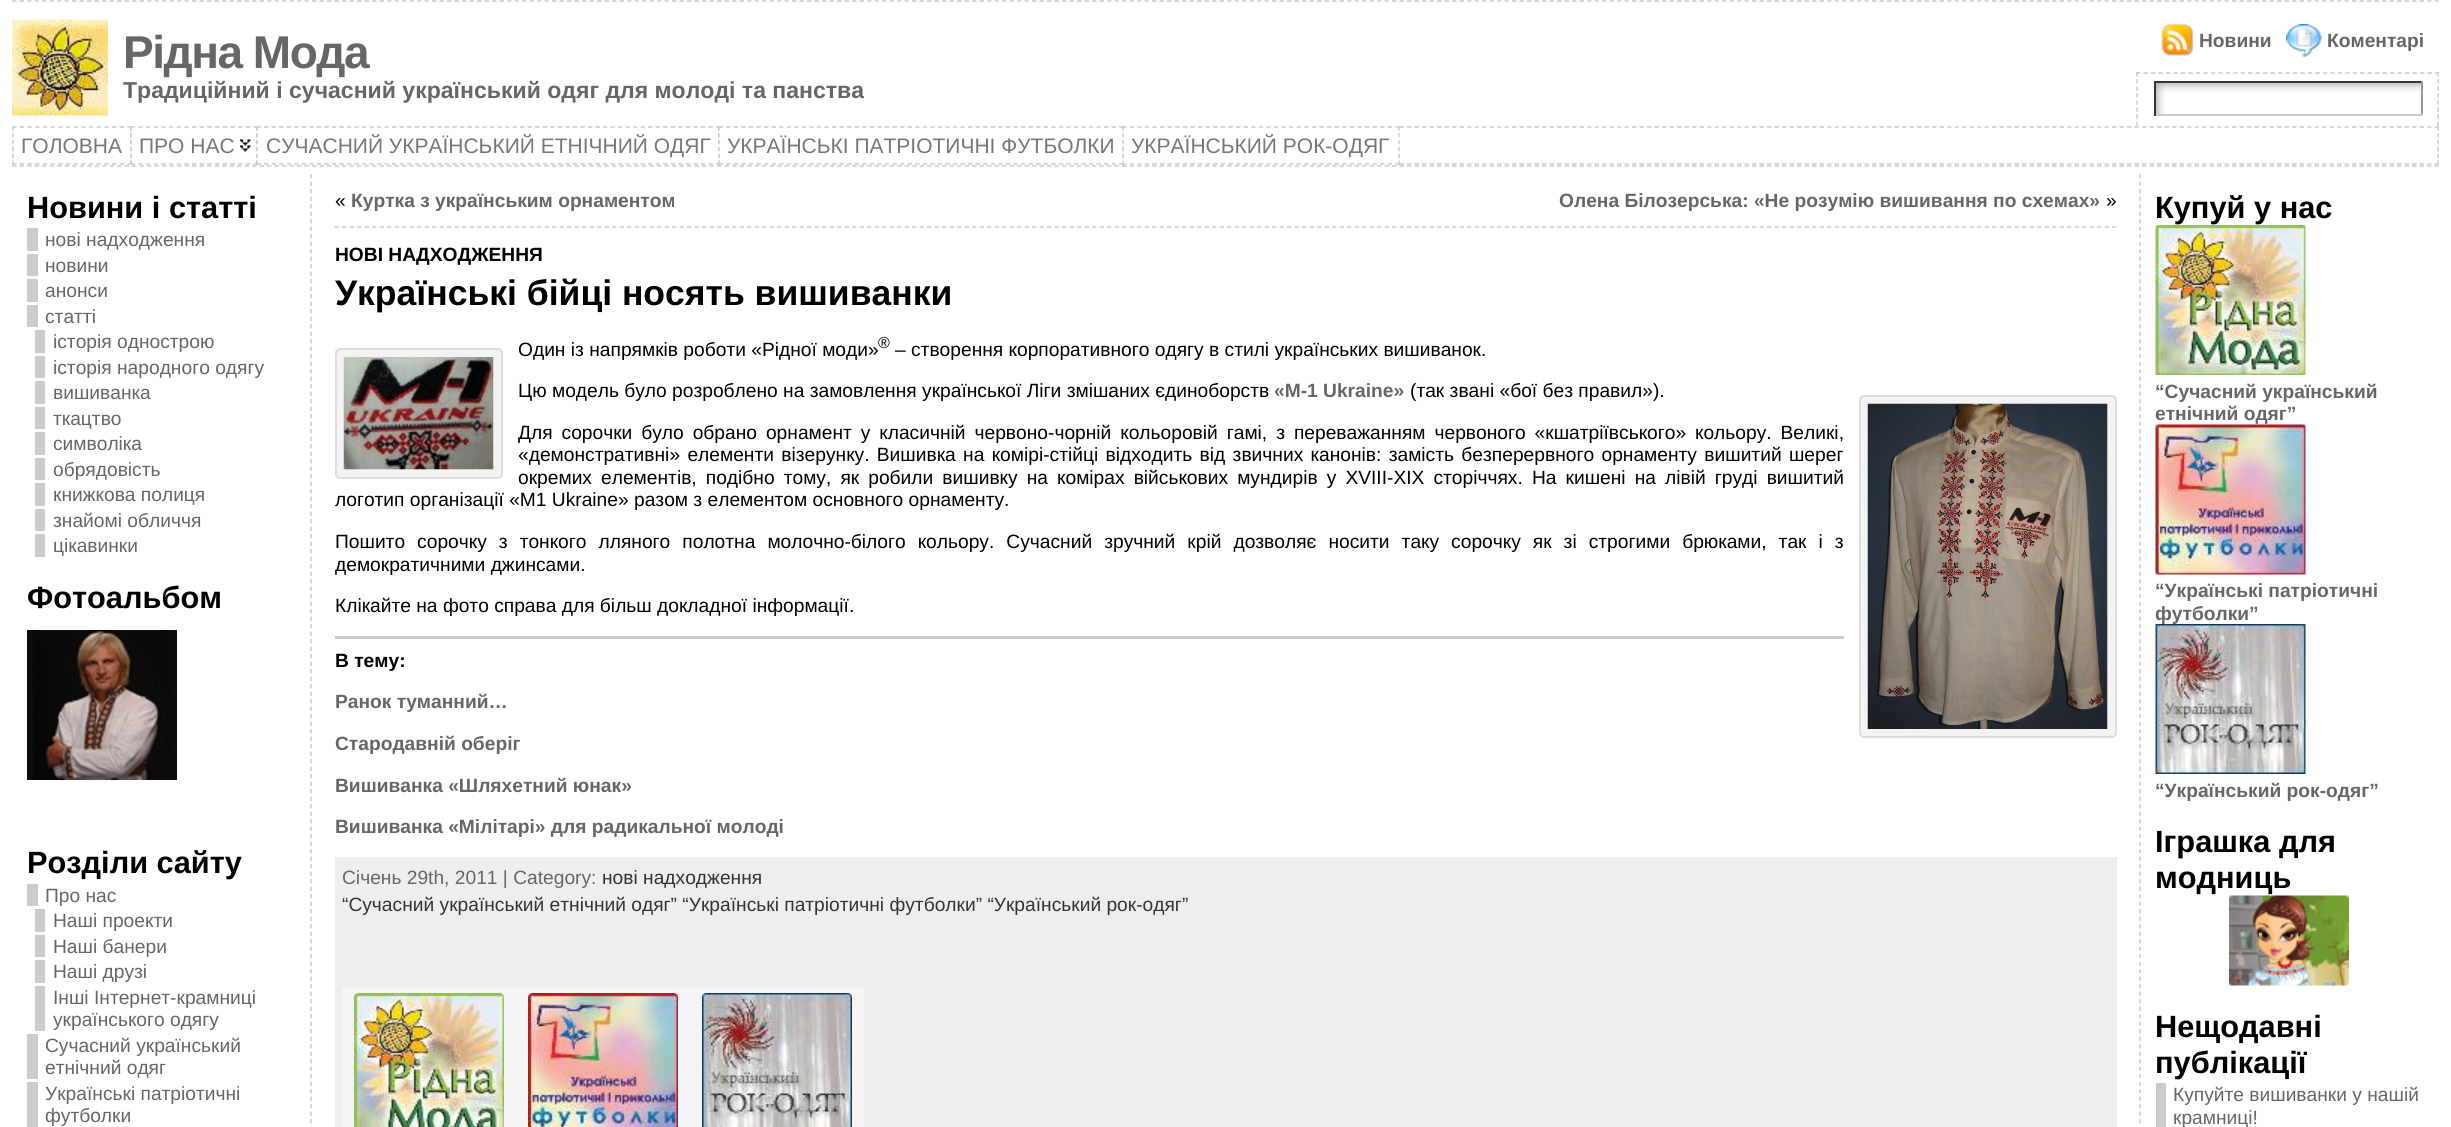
#include <cairo.h>
#include <math.h>
#include <stddef.h>


static void spaced_text(cairo_t *cr, double x, double y, const char *s, double letter, double word) {
    cairo_move_to(cr, x, y);
    while (*s) {
        char ch[5] = {0};
        int n = 0;
        do ch[n++] = *s++; while ((*s & 0xC0) == 0x80);
        cairo_show_text(cr, ch);
        cairo_rel_move_to(cr, letter + word * (*ch == ' '), 0);
    }
}

static void round_rect(cairo_t *cr, double x, double y, double w, double h, double r) {
    cairo_new_sub_path(cr);
    cairo_arc(cr, x + w - r, y + h - r, r, 0, M_PI / 2);
    cairo_arc(cr, x + r, y + h - r, r, M_PI / 2, M_PI);
    cairo_arc(cr, x + r, y + r, r, M_PI, 1.5 * M_PI);
    cairo_arc(cr, x + w - r, y + r, r, 1.5 * M_PI, 2 * M_PI);
    cairo_close_path(cr);
}

static void picture(cairo_t *cr, const char *path, double x, double y, double w, double h) {
    cairo_surface_t *image = cairo_image_surface_create_from_png(path);
    cairo_save(cr);
    cairo_set_source_surface(cr, image, x, y);
    cairo_rectangle(cr, x, y, w, h);
    cairo_fill(cr);
    cairo_restore(cr);
    cairo_surface_destroy(image);
}

int main(void) {
    cairo_surface_t *surface = cairo_image_surface_create(CAIRO_FORMAT_RGB24, 2451, 1127);
    cairo_t *cr = cairo_create(surface);
    cairo_font_options_t *options = cairo_font_options_create();
    cairo_font_options_set_hint_metrics(options, CAIRO_HINT_METRICS_OFF);
    cairo_font_options_set_hint_style(options, CAIRO_HINT_STYLE_NONE);
    cairo_set_font_options(cr, options);
    cairo_set_miter_limit(cr, 4);
    cairo_set_source_rgb(cr, 1, 1, 1);
    cairo_paint(cr);
    cairo_new_path(cr);
    cairo_move_to(cr, 12, 1);
    cairo_line_to(cr, 2439, 1);
    cairo_set_source_rgb(cr, 0.8, 0.8, 0.8);
    cairo_set_line_width(cr, 1.5);
    cairo_set_dash(cr, (double[]){4.5, 3}, 2, 0);
    cairo_stroke(cr);
    picture(cr, "img1.png", 12, 19, 96, 97);
    cairo_select_font_face(cr, "Liberation Sans", CAIRO_FONT_SLANT_NORMAL, CAIRO_FONT_WEIGHT_BOLD);
    cairo_set_font_size(cr, 46);
    cairo_set_source_rgb(cr, 0.4, 0.4, 0.4);
    spaced_text(cr, 123, 68, "Рідна Мода", -1.5, 0);
    cairo_set_font_size(cr, 23.05);
    cairo_move_to(cr, 123, 98);
    cairo_show_text(cr, "Традиційний і сучасний український одяг для молоді та панства");
    picture(cr, "img2.png", 2161, 24, 33, 32);
    cairo_set_font_size(cr, 19.2);
    cairo_move_to(cr, 2199, 47);
    cairo_show_text(cr, "Новини");
    picture(cr, "img3.png", 2286, 24, 36, 33);
    cairo_move_to(cr, 2327, 47);
    cairo_show_text(cr, "Коментарі");
    cairo_new_path(cr);
    cairo_move_to(cr, 2136, 73);
    cairo_line_to(cr, 2439, 73);
    cairo_set_source_rgb(cr, 0.8, 0.8, 0.8);
    cairo_set_dash(cr, (double[]){4.5, 2.97}, 2, 0);
    cairo_stroke(cr);
    cairo_new_path(cr);
    cairo_move_to(cr, 2438, 72);
    cairo_line_to(cr, 2438, 126);
    cairo_set_dash(cr, (double[]){4.5, 2.56}, 2, 0);
    cairo_stroke(cr);
    cairo_new_path(cr);
    cairo_move_to(cr, 2137, 72);
    cairo_line_to(cr, 2137, 126);
    cairo_stroke(cr);
    picture(cr, "img4.png", 2156, 83, 265, 31);
    cairo_set_source_rgb(cr, 0.2, 0.2, 0.2);
    cairo_rectangle(cr, 2154, 81, 269, 2);
    cairo_fill(cr);
    cairo_set_source_rgb(cr, 0.6, 0.6, 0.6);
    cairo_rectangle(cr, 2421, 81, 2, 35);
    cairo_fill(cr);
    cairo_set_source_rgb(cr, 0.8, 0.8, 0.8);
    cairo_rectangle(cr, 2154, 114, 269, 2);
    cairo_fill(cr);
    cairo_set_source_rgb(cr, 0.2, 0.2, 0.2);
    cairo_rectangle(cr, 2154, 81, 2, 35);
    cairo_fill(cr);
    cairo_new_path(cr);
    cairo_move_to(cr, 12, 127);
    cairo_line_to(cr, 2439, 127);
    cairo_set_source_rgb(cr, 0.8, 0.8, 0.8);
    cairo_set_dash(cr, (double[]){4.5, 3}, 2, 0);
    cairo_stroke(cr);
    cairo_new_path(cr);
    cairo_move_to(cr, 2438, 126);
    cairo_line_to(cr, 2438, 165);
    cairo_set_dash(cr, (double[]){4.5, 2.4}, 2, 0);
    cairo_stroke(cr);
    cairo_new_path(cr);
    cairo_move_to(cr, 12, 164);
    cairo_line_to(cr, 2439, 164);
    cairo_set_dash(cr, (double[]){4.5, 3}, 2, 0);
    cairo_stroke(cr);
    cairo_set_source_rgb(cr, 1, 1, 1);
    cairo_rectangle(cr, 12, 126, 117, 39);
    cairo_fill(cr);
    cairo_new_path(cr);
    cairo_move_to(cr, 12, 127);
    cairo_line_to(cr, 132, 127);
    cairo_set_source_rgb(cr, 0.8, 0.8, 0.8);
    cairo_set_dash(cr, (double[]){4.5, 3.19}, 2, 0);
    cairo_stroke(cr);
    cairo_new_path(cr);
    cairo_move_to(cr, 131, 126);
    cairo_line_to(cr, 131, 165);
    cairo_set_dash(cr, (double[]){4.5, 2.4}, 2, 0);
    cairo_stroke(cr);
    cairo_new_path(cr);
    cairo_move_to(cr, 12, 164);
    cairo_line_to(cr, 132, 164);
    cairo_set_dash(cr, (double[]){4.5, 3.19}, 2, 0);
    cairo_stroke(cr);
    cairo_new_path(cr);
    cairo_move_to(cr, 13, 126);
    cairo_line_to(cr, 13, 165);
    cairo_set_dash(cr, (double[]){4.5, 2.4}, 2, 0);
    cairo_stroke(cr);
    cairo_select_font_face(cr, "Liberation Sans", CAIRO_FONT_SLANT_NORMAL, CAIRO_FONT_WEIGHT_NORMAL);
    cairo_set_font_size(cr, 21);
    cairo_set_source_rgb(cr, 0.467, 0.467, 0.467);
    cairo_move_to(cr, 21, 153);
    cairo_show_text(cr, "ГОЛОВНА");
    cairo_set_source_rgb(cr, 1, 1, 1);
    cairo_rectangle(cr, 131, 126, 126, 39);
    cairo_fill(cr);
    picture(cr, "img5.png", 240, 139, 11, 13);
    cairo_new_path(cr);
    cairo_move_to(cr, 130.5, 127);
    cairo_line_to(cr, 258, 127);
    cairo_set_source_rgb(cr, 0.8, 0.8, 0.8);
    cairo_set_dash(cr, (double[]){4.5, 3.18}, 2, 0);
    cairo_stroke(cr);
    cairo_new_path(cr);
    cairo_move_to(cr, 257, 126);
    cairo_line_to(cr, 257, 165);
    cairo_set_dash(cr, (double[]){4.5, 2.4}, 2, 0);
    cairo_stroke(cr);
    cairo_new_path(cr);
    cairo_move_to(cr, 130.5, 164);
    cairo_line_to(cr, 258, 164);
    cairo_set_dash(cr, (double[]){4.5, 3.18}, 2, 0);
    cairo_stroke(cr);
    cairo_new_path(cr);
    cairo_move_to(cr, 131, 126);
    cairo_line_to(cr, 131, 165);
    cairo_set_dash(cr, (double[]){4.5, 2.4}, 2, 0);
    cairo_stroke(cr);
    cairo_set_source_rgb(cr, 0.467, 0.467, 0.467);
    cairo_move_to(cr, 139, 153);
    cairo_show_text(cr, "ПРО НАС");
    cairo_set_source_rgb(cr, 1, 1, 1);
    cairo_rectangle(cr, 257, 126, 462, 39);
    cairo_fill(cr);
    cairo_new_path(cr);
    cairo_move_to(cr, 256.5, 127);
    cairo_line_to(cr, 720, 127);
    cairo_set_source_rgb(cr, 0.8, 0.8, 0.8);
    cairo_set_dash(cr, (double[]){4.5, 3.03}, 2, 0);
    cairo_stroke(cr);
    cairo_new_path(cr);
    cairo_move_to(cr, 719, 126);
    cairo_line_to(cr, 719, 165);
    cairo_set_dash(cr, (double[]){4.5, 2.4}, 2, 0);
    cairo_stroke(cr);
    cairo_new_path(cr);
    cairo_move_to(cr, 256.5, 164);
    cairo_line_to(cr, 720, 164);
    cairo_set_dash(cr, (double[]){4.5, 3.03}, 2, 0);
    cairo_stroke(cr);
    cairo_new_path(cr);
    cairo_move_to(cr, 257, 126);
    cairo_line_to(cr, 257, 165);
    cairo_set_dash(cr, (double[]){4.5, 2.4}, 2, 0);
    cairo_stroke(cr);
    cairo_set_source_rgb(cr, 0.467, 0.467, 0.467);
    cairo_move_to(cr, 266, 153);
    cairo_show_text(cr, "СУЧАСНИЙ УКРАЇНСЬКИЙ ЕТНІЧНИЙ ОДЯГ");
    cairo_set_source_rgb(cr, 1, 1, 1);
    cairo_rectangle(cr, 719, 126, 400, 39);
    cairo_fill(cr);
    cairo_new_path(cr);
    cairo_move_to(cr, 718.5, 127);
    cairo_line_to(cr, 1123.5, 127);
    cairo_set_source_rgb(cr, 0.8, 0.8, 0.8);
    cairo_set_dash(cr, (double[]){4.5, 3.06}, 2, 0);
    cairo_stroke(cr);
    cairo_new_path(cr);
    cairo_move_to(cr, 718.5, 164);
    cairo_line_to(cr, 1123.5, 164);
    cairo_stroke(cr);
    cairo_new_path(cr);
    cairo_move_to(cr, 719, 126);
    cairo_line_to(cr, 719, 165);
    cairo_set_dash(cr, (double[]){4.5, 2.4}, 2, 0);
    cairo_stroke(cr);
    cairo_set_source_rgb(cr, 0.467, 0.467, 0.467);
    cairo_move_to(cr, 727, 153);
    cairo_show_text(cr, "УКРАЇНСЬКІ ПАТРІОТИЧНІ ФУТБОЛКИ");
    cairo_set_source_rgb(cr, 1, 1, 1);
    cairo_rectangle(cr, 1122, 126, 278, 39);
    cairo_fill(cr);
    cairo_new_path(cr);
    cairo_move_to(cr, 1122, 127);
    cairo_line_to(cr, 1399.5, 127);
    cairo_set_source_rgb(cr, 0.8, 0.8, 0.8);
    cairo_set_dash(cr, (double[]){4.5, 3.09}, 2, 0);
    cairo_stroke(cr);
    cairo_new_path(cr);
    cairo_move_to(cr, 1399, 126);
    cairo_line_to(cr, 1399, 165);
    cairo_set_dash(cr, (double[]){4.5, 2.4}, 2, 0);
    cairo_stroke(cr);
    cairo_new_path(cr);
    cairo_move_to(cr, 1122, 164);
    cairo_line_to(cr, 1399.5, 164);
    cairo_set_dash(cr, (double[]){4.5, 3.09}, 2, 0);
    cairo_stroke(cr);
    cairo_new_path(cr);
    cairo_move_to(cr, 1123, 126);
    cairo_line_to(cr, 1123, 165);
    cairo_set_dash(cr, (double[]){4.5, 2.4}, 2, 0);
    cairo_stroke(cr);
    cairo_set_source_rgb(cr, 0.467, 0.467, 0.467);
    cairo_move_to(cr, 1131, 153);
    cairo_show_text(cr, "УКРАЇНСЬКИЙ РОК-ОДЯГ");
    cairo_new_path(cr);
    cairo_move_to(cr, 12, 166);
    cairo_line_to(cr, 2439, 166);
    cairo_set_source_rgb(cr, 0.8, 0.8, 0.8);
    cairo_set_dash(cr, (double[]){4.5, 3}, 2, 0);
    cairo_stroke(cr);
    cairo_new_path(cr);
    cairo_move_to(cr, 311, 174);
    cairo_line_to(cr, 311, 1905);
    cairo_stroke(cr);
    cairo_select_font_face(cr, "Liberation Sans", CAIRO_FONT_SLANT_NORMAL, CAIRO_FONT_WEIGHT_BOLD);
    cairo_set_font_size(cr, 30.75);
    cairo_set_source_rgb(cr, 0, 0, 0);
    cairo_move_to(cr, 27, 218);
    cairo_show_text(cr, "Новини і статті");
    cairo_select_font_face(cr, "Liberation Sans", CAIRO_FONT_SLANT_NORMAL, CAIRO_FONT_WEIGHT_NORMAL);
    cairo_set_font_size(cr, 19.2);
    cairo_set_source_rgb(cr, 0.4, 0.4, 0.4);
    cairo_move_to(cr, 45, 246);
    cairo_show_text(cr, "нові надходження");
    cairo_set_source_rgb(cr, 0.8, 0.8, 0.8);
    cairo_rectangle(cr, 27, 228, 11, 23);
    cairo_fill(cr);
    cairo_set_source_rgb(cr, 0.4, 0.4, 0.4);
    cairo_move_to(cr, 45, 272);
    cairo_show_text(cr, "новини");
    cairo_set_source_rgb(cr, 0.8, 0.8, 0.8);
    cairo_rectangle(cr, 27, 254, 11, 22);
    cairo_fill(cr);
    cairo_set_source_rgb(cr, 0.4, 0.4, 0.4);
    cairo_move_to(cr, 45, 297);
    cairo_show_text(cr, "анонси");
    cairo_set_source_rgb(cr, 0.8, 0.8, 0.8);
    cairo_rectangle(cr, 27, 279, 11, 23);
    cairo_fill(cr);
    cairo_set_source_rgb(cr, 0.4, 0.4, 0.4);
    cairo_move_to(cr, 45, 323);
    cairo_show_text(cr, "статті");
    cairo_set_source_rgb(cr, 0.8, 0.8, 0.8);
    cairo_rectangle(cr, 27, 305, 11, 22);
    cairo_fill(cr);
    cairo_set_source_rgb(cr, 0.4, 0.4, 0.4);
    cairo_move_to(cr, 53, 348);
    cairo_show_text(cr, "історія однострою");
    cairo_set_source_rgb(cr, 0.8, 0.8, 0.8);
    cairo_rectangle(cr, 35, 330, 10, 23);
    cairo_fill(cr);
    cairo_set_source_rgb(cr, 0.4, 0.4, 0.4);
    cairo_move_to(cr, 53, 374);
    cairo_show_text(cr, "історія народного одягу");
    cairo_set_source_rgb(cr, 0.8, 0.8, 0.8);
    cairo_rectangle(cr, 35, 356, 10, 22);
    cairo_fill(cr);
    cairo_set_source_rgb(cr, 0.4, 0.4, 0.4);
    cairo_move_to(cr, 53, 399);
    cairo_show_text(cr, "вишиванка");
    cairo_set_source_rgb(cr, 0.8, 0.8, 0.8);
    cairo_rectangle(cr, 35, 381, 10, 23);
    cairo_fill(cr);
    cairo_set_source_rgb(cr, 0.4, 0.4, 0.4);
    cairo_move_to(cr, 53, 425);
    cairo_show_text(cr, "ткацтво");
    cairo_set_source_rgb(cr, 0.8, 0.8, 0.8);
    cairo_rectangle(cr, 35, 407, 10, 22);
    cairo_fill(cr);
    cairo_set_source_rgb(cr, 0.4, 0.4, 0.4);
    cairo_move_to(cr, 53, 450);
    cairo_show_text(cr, "символіка");
    cairo_set_source_rgb(cr, 0.8, 0.8, 0.8);
    cairo_rectangle(cr, 35, 432, 10, 23);
    cairo_fill(cr);
    cairo_set_source_rgb(cr, 0.4, 0.4, 0.4);
    cairo_move_to(cr, 53, 476);
    cairo_show_text(cr, "oбрядовість");
    cairo_set_source_rgb(cr, 0.8, 0.8, 0.8);
    cairo_rectangle(cr, 35, 458, 10, 22);
    cairo_fill(cr);
    cairo_set_source_rgb(cr, 0.4, 0.4, 0.4);
    cairo_move_to(cr, 53, 501);
    cairo_show_text(cr, "книжкова полиця");
    cairo_set_source_rgb(cr, 0.8, 0.8, 0.8);
    cairo_rectangle(cr, 35, 483, 10, 23);
    cairo_fill(cr);
    cairo_set_source_rgb(cr, 0.4, 0.4, 0.4);
    cairo_move_to(cr, 53, 527);
    cairo_show_text(cr, "знайомі обличчя");
    cairo_set_source_rgb(cr, 0.8, 0.8, 0.8);
    cairo_rectangle(cr, 35, 509, 10, 22);
    cairo_fill(cr);
    cairo_set_source_rgb(cr, 0.4, 0.4, 0.4);
    cairo_move_to(cr, 53, 552);
    cairo_show_text(cr, "цікавинки");
    cairo_set_source_rgb(cr, 0.8, 0.8, 0.8);
    cairo_rectangle(cr, 35, 534, 10, 23);
    cairo_fill(cr);
    cairo_select_font_face(cr, "Liberation Sans", CAIRO_FONT_SLANT_NORMAL, CAIRO_FONT_WEIGHT_BOLD);
    cairo_set_font_size(cr, 30.75);
    cairo_set_source_rgb(cr, 0, 0, 0);
    cairo_move_to(cr, 27, 608);
    cairo_show_text(cr, "Фотоальбом");
    picture(cr, "img6.png", 27, 630, 150, 150);
    cairo_move_to(cr, 27, 873);
    cairo_show_text(cr, "Розділи сайту");
    cairo_set_source_rgb(cr, 0.8, 0.8, 0.8);
    cairo_rectangle(cr, 27, 884, 11, 22);
    cairo_fill(cr);
    cairo_select_font_face(cr, "Liberation Sans", CAIRO_FONT_SLANT_NORMAL, CAIRO_FONT_WEIGHT_NORMAL);
    cairo_set_font_size(cr, 19.2);
    cairo_set_source_rgb(cr, 0.4, 0.4, 0.4);
    cairo_move_to(cr, 45, 902);
    cairo_show_text(cr, "Про нас");
    cairo_set_source_rgb(cr, 0.8, 0.8, 0.8);
    cairo_rectangle(cr, 35, 909, 10, 23);
    cairo_fill(cr);
    cairo_set_source_rgb(cr, 0.4, 0.4, 0.4);
    cairo_move_to(cr, 53, 927);
    cairo_show_text(cr, "Наші проекти");
    cairo_set_source_rgb(cr, 0.8, 0.8, 0.8);
    cairo_rectangle(cr, 35, 935, 10, 22);
    cairo_fill(cr);
    cairo_set_source_rgb(cr, 0.4, 0.4, 0.4);
    cairo_move_to(cr, 53, 953);
    cairo_show_text(cr, "Наші банери");
    cairo_set_source_rgb(cr, 0.8, 0.8, 0.8);
    cairo_rectangle(cr, 35, 960, 10, 23);
    cairo_fill(cr);
    cairo_set_source_rgb(cr, 0.4, 0.4, 0.4);
    cairo_move_to(cr, 53, 978);
    cairo_show_text(cr, "Наші друзі");
    cairo_set_source_rgb(cr, 0.8, 0.8, 0.8);
    cairo_rectangle(cr, 35, 986, 10, 45);
    cairo_fill(cr);
    cairo_set_source_rgb(cr, 0.4, 0.4, 0.4);
    cairo_move_to(cr, 53, 1004);
    cairo_show_text(cr, "Інші Інтернет-крамниці");
    cairo_move_to(cr, 53, 1026);
    cairo_show_text(cr, "українського одягу");
    cairo_set_source_rgb(cr, 0.8, 0.8, 0.8);
    cairo_rectangle(cr, 27, 1034, 11, 45);
    cairo_fill(cr);
    cairo_set_source_rgb(cr, 0.4, 0.4, 0.4);
    cairo_move_to(cr, 45, 1052);
    cairo_show_text(cr, "Сучасний український");
    cairo_move_to(cr, 45, 1074);
    cairo_show_text(cr, "етнічний одяг");
    cairo_set_source_rgb(cr, 0.8, 0.8, 0.8);
    cairo_rectangle(cr, 27, 1082, 11, 45);
    cairo_fill(cr);
    cairo_set_source_rgb(cr, 0.4, 0.4, 0.4);
    cairo_move_to(cr, 45, 1100);
    cairo_show_text(cr, "Українські патріотичні");
    cairo_move_to(cr, 45, 1122);
    cairo_show_text(cr, "футболки");
    cairo_new_path(cr);
    cairo_move_to(cr, 334.5, 227);
    cairo_line_to(cr, 2116.5, 227);
    cairo_set_source_rgb(cr, 0.8, 0.8, 0.8);
    cairo_stroke(cr);
    cairo_set_source_rgb(cr, 0, 0, 0);
    cairo_move_to(cr, 335, 207);
    cairo_show_text(cr, "«");
    cairo_select_font_face(cr, "Liberation Sans", CAIRO_FONT_SLANT_NORMAL, CAIRO_FONT_WEIGHT_BOLD);
    cairo_set_source_rgb(cr, 0.4, 0.4, 0.4);
    cairo_move_to(cr, 351, 207);
    cairo_show_text(cr, "Куртка з українським орнаментом");
    cairo_move_to(cr, 1559, 207);
    cairo_show_text(cr, "Олена Білозерська: «Не розумію вишивання по схемах»");
    cairo_select_font_face(cr, "Liberation Sans", CAIRO_FONT_SLANT_NORMAL, CAIRO_FONT_WEIGHT_NORMAL);
    cairo_set_source_rgb(cr, 0, 0, 0);
    cairo_move_to(cr, 2106, 207);
    cairo_show_text(cr, "»");
    cairo_select_font_face(cr, "Liberation Sans", CAIRO_FONT_SLANT_NORMAL, CAIRO_FONT_WEIGHT_BOLD);
    cairo_move_to(cr, 335, 261);
    cairo_show_text(cr, "НОВІ НАДХОДЖЕННЯ");
    cairo_set_font_size(cr, 35.5);
    cairo_move_to(cr, 335, 305);
    cairo_show_text(cr, "Українські бійці носять вишиванки");
    cairo_set_source_rgb(cr, 0.953, 0.953, 0.953);
    round_rect(cr, 336, 349, 166, 129, 4);
    cairo_fill_preserve(cr);
    cairo_set_source_rgb(cr, 0.867, 0.867, 0.867);
    cairo_set_line_width(cr, 2);
    cairo_set_dash(cr, NULL, 0, 0);
    cairo_stroke(cr);
    picture(cr, "img7.png", 343, 357, 151, 113);
    cairo_select_font_face(cr, "Liberation Sans", CAIRO_FONT_SLANT_NORMAL, CAIRO_FONT_WEIGHT_NORMAL);
    cairo_set_font_size(cr, 19.2);
    cairo_set_source_rgb(cr, 0, 0, 0);
    cairo_move_to(cr, 518, 356);
    cairo_show_text(cr, "Один із напрямків роботи «Рідної моди»");
    cairo_set_font_size(cr, 16);
    cairo_move_to(cr, 878, 348);
    cairo_show_text(cr, "®");
    cairo_set_font_size(cr, 19.2);
    cairo_move_to(cr, 895, 356);
    cairo_show_text(cr, "– створення корпоративного одягу в стилі українських вишиванок.");
    cairo_move_to(cr, 518, 397);
    cairo_show_text(cr, "Цю модель було розроблено на замовлення української Ліги змішаних єдиноборств");
    cairo_select_font_face(cr, "Liberation Sans", CAIRO_FONT_SLANT_NORMAL, CAIRO_FONT_WEIGHT_BOLD);
    cairo_set_source_rgb(cr, 0.4, 0.4, 0.4);
    cairo_move_to(cr, 1274, 397);
    cairo_show_text(cr, "«M-1 Ukraine»");
    cairo_select_font_face(cr, "Liberation Sans", CAIRO_FONT_SLANT_NORMAL, CAIRO_FONT_WEIGHT_NORMAL);
    cairo_set_source_rgb(cr, 0, 0, 0);
    cairo_move_to(cr, 1410, 397);
    cairo_show_text(cr, "(так звані «бої без правил»).");
    cairo_set_source_rgb(cr, 0.953, 0.953, 0.953);
    round_rect(cr, 1860, 396, 256, 341, 4);
    cairo_fill_preserve(cr);
    cairo_set_source_rgb(cr, 0.867, 0.867, 0.867);
    cairo_stroke(cr);
    picture(cr, "img8.png", 1867, 403, 241, 326);
    cairo_set_source_rgb(cr, 0, 0, 0);
    spaced_text(cr, 518, 439, "Для сорочки було обрано орнамент у класичній червоно-чорній кольоровій гамі, з переважанням червоного «кшатріївського» кольору. Великі,", 0, 3.6);
    spaced_text(cr, 518, 461, "«демонстративні» елементи візерунку. Вишивка на комірі-стійці відходить від звичних канонів: замість безперервного орнаменту вишитий шерег", 0, 2);
    spaced_text(cr, 518, 484, "окремих елементів, подібно тому, як робили вишивку на комірах військових мундирів у XVIII-XIX сторіччях. На кишені на лівій груді вишитий", 0, 3.75);
    cairo_move_to(cr, 335, 506);
    cairo_show_text(cr, "логотип організації «M1 Ukraine» разом з елементом основного орнаменту.");
    spaced_text(cr, 335, 548, "Пошито сорочку з тонкого лляного полотна молочно-білого кольору. Сучасний зручний крій дозволяє носити таку сорочку як зі строгими брюками, так і з", 0, 6.7);
    cairo_move_to(cr, 335, 571);
    cairo_show_text(cr, "демократичними джинсами.");
    cairo_move_to(cr, 335, 612);
    cairo_show_text(cr, "Клікайте на фото справа для більш докладної інформації.");
    cairo_set_source_rgb(cr, 0.8, 0.8, 0.8);
    cairo_rectangle(cr, 335, 636, 1509, 3);
    cairo_fill(cr);
    cairo_select_font_face(cr, "Liberation Sans", CAIRO_FONT_SLANT_NORMAL, CAIRO_FONT_WEIGHT_BOLD);
    cairo_set_source_rgb(cr, 0, 0, 0);
    cairo_move_to(cr, 335, 667);
    cairo_show_text(cr, "В тему:");
    cairo_set_source_rgb(cr, 0.4, 0.4, 0.4);
    cairo_move_to(cr, 335, 708);
    cairo_show_text(cr, "Ранок туманний…");
    cairo_move_to(cr, 335, 750);
    cairo_show_text(cr, "Стародавній оберіг");
    cairo_move_to(cr, 335, 792);
    cairo_show_text(cr, "Вишиванка «Шляхетний юнак»");
    cairo_move_to(cr, 335, 833);
    cairo_show_text(cr, "Вишиванка «Мілітарі» для радикальної молоді");
    cairo_set_source_rgb(cr, 0.933, 0.933, 0.933);
    cairo_rectangle(cr, 335, 857, 1782, 270);
    cairo_fill(cr);
    cairo_select_font_face(cr, "Liberation Sans", CAIRO_FONT_SLANT_NORMAL, CAIRO_FONT_WEIGHT_NORMAL);
    cairo_set_source_rgb(cr, 0.4, 0.4, 0.4);
    cairo_move_to(cr, 342, 884);
    cairo_show_text(cr, "Січень 29th, 2011 | Category:");
    cairo_set_source_rgb(cr, 0.2, 0.2, 0.2);
    cairo_move_to(cr, 602, 884);
    cairo_show_text(cr, "нові надходження");
    cairo_move_to(cr, 342, 911);
    cairo_show_text(cr, "“Сучасний український етнічний одяг” “Українські патріотичні футболки” “Український рок-одяг”");
    cairo_set_source_rgb(cr, 0.957, 0.957, 0.957);
    cairo_rectangle(cr, 342, 987, 522, 140);
    cairo_fill(cr);
    picture(cr, "img9.png", 354, 993, 150, 134);
    picture(cr, "img10.png", 528, 993, 150, 134);
    picture(cr, "img11.png", 702, 993, 150, 134);
    cairo_new_path(cr);
    cairo_move_to(cr, 2140, 174);
    cairo_line_to(cr, 2140, 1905);
    cairo_set_source_rgb(cr, 0.8, 0.8, 0.8);
    cairo_set_line_width(cr, 1.5);
    cairo_set_dash(cr, (double[]){4.5, 3}, 2, 0);
    cairo_stroke(cr);
    cairo_select_font_face(cr, "Liberation Sans", CAIRO_FONT_SLANT_NORMAL, CAIRO_FONT_WEIGHT_BOLD);
    cairo_set_font_size(cr, 30.75);
    cairo_set_source_rgb(cr, 0, 0, 0);
    cairo_move_to(cr, 2155, 218);
    cairo_show_text(cr, "Купуй у нас");
    picture(cr, "img12.png", 2155, 225, 151, 150);
    cairo_set_font_size(cr, 19.2);
    cairo_set_source_rgb(cr, 0.4, 0.4, 0.4);
    cairo_move_to(cr, 2155, 398);
    cairo_show_text(cr, "“Сучасний український");
    cairo_move_to(cr, 2155, 420);
    cairo_show_text(cr, "етнічний одяг”");
    picture(cr, "img13.png", 2155, 424, 151, 151);
    cairo_move_to(cr, 2155, 597);
    cairo_show_text(cr, "“Українські патріотичні");
    cairo_move_to(cr, 2155, 620);
    cairo_show_text(cr, "футболки”");
    picture(cr, "img14.png", 2155, 624, 151, 150);
    cairo_move_to(cr, 2155, 797);
    cairo_show_text(cr, "“Український рок-одяг”");
    cairo_set_font_size(cr, 30.75);
    cairo_set_source_rgb(cr, 0, 0, 0);
    cairo_move_to(cr, 2155, 852);
    cairo_show_text(cr, "Іграшка для");
    cairo_move_to(cr, 2155, 888);
    cairo_show_text(cr, "модниць");
    picture(cr, "img15.png", 2229, 895, 120, 91);
    cairo_move_to(cr, 2155, 1037);
    cairo_show_text(cr, "Нещодавні");
    cairo_move_to(cr, 2155, 1073);
    cairo_show_text(cr, "публікації");
    cairo_set_source_rgb(cr, 0.8, 0.8, 0.8);
    cairo_rectangle(cr, 2156, 1083, 10, 44);
    cairo_fill(cr);
    cairo_select_font_face(cr, "Liberation Sans", CAIRO_FONT_SLANT_NORMAL, CAIRO_FONT_WEIGHT_NORMAL);
    cairo_set_font_size(cr, 19.2);
    cairo_set_source_rgb(cr, 0.4, 0.4, 0.4);
    cairo_move_to(cr, 2173, 1101);
    cairo_show_text(cr, "Купуйте вишиванки у нашій");
    cairo_move_to(cr, 2173, 1124);
    cairo_show_text(cr, "крамниці!");
    cairo_surface_write_to_png(surface, "page.png");
    cairo_font_options_destroy(options);
    cairo_destroy(cr);
    cairo_surface_destroy(surface);
    return 0;
}
